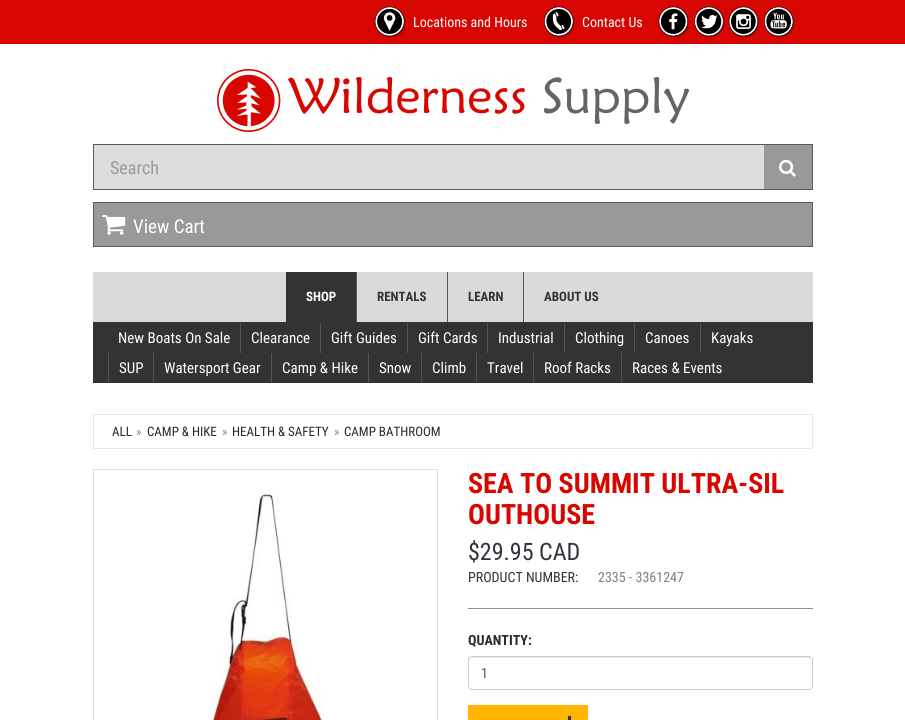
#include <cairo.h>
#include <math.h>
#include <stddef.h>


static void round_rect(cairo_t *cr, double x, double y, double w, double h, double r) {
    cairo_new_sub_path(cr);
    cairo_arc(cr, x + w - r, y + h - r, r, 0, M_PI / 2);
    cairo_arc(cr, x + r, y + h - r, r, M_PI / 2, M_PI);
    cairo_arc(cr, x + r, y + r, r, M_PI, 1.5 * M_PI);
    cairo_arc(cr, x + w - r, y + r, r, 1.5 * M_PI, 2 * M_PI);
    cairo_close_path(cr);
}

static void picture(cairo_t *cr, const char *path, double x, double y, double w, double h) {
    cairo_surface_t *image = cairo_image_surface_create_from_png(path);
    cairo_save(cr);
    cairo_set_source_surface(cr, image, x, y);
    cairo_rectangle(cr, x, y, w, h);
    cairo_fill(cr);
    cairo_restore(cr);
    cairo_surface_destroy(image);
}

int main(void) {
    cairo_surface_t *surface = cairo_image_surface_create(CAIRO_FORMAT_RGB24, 905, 720);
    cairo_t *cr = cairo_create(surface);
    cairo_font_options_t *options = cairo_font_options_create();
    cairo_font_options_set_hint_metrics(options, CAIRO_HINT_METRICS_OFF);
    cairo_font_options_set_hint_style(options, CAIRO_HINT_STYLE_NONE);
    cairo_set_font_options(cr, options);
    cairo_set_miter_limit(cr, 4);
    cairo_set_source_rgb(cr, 1, 1, 1);
    cairo_paint(cr);
    cairo_set_source_rgb(cr, 0.843, 0.024, 0);
    cairo_rectangle(cr, 0, 0, 905, 44);
    cairo_fill(cr);
    picture(cr, "img1.png", 374, 6, 32, 32);
    cairo_select_font_face(cr, "Roboto Condensed", CAIRO_FONT_SLANT_NORMAL, CAIRO_FONT_WEIGHT_NORMAL);
    cairo_set_font_size(cr, 14);
    cairo_set_source_rgb(cr, 1, 1, 1);
    cairo_move_to(cr, 413, 27);
    cairo_show_text(cr, "Locations and Hours");
    picture(cr, "img2.png", 544, 6, 31, 32);
    cairo_move_to(cr, 582, 27);
    cairo_show_text(cr, "Contact Us");
    picture(cr, "img3.png", 658, 6, 32, 32);
    picture(cr, "img4.png", 694, 6, 31, 32);
    picture(cr, "img5.png", 728, 6, 32, 32);
    picture(cr, "img6.png", 764, 6, 31, 32);
    picture(cr, "img7.png", 217, 69, 472, 63);
    cairo_set_source_rgb(cr, 0.6, 0.6, 0.6);
    cairo_rectangle(cr, 764, 145, 48, 44);
    cairo_fill(cr);
    cairo_set_source_rgb(cr, 0.322, 0.361, 0.4);
    cairo_rectangle(cr, 93, 144, 720, 1);
    cairo_fill(cr);
    cairo_rectangle(cr, 812, 144, 1, 46);
    cairo_fill(cr);
    cairo_rectangle(cr, 93, 189, 720, 1);
    cairo_fill(cr);
    picture(cr, "img8.png", 779, 159, 17, 18);
    cairo_set_source_rgb(cr, 0.867, 0.867, 0.867);
    cairo_rectangle(cr, 94, 145, 670, 44);
    cairo_fill(cr);
    cairo_set_source_rgb(cr, 0.322, 0.361, 0.4);
    cairo_rectangle(cr, 93, 144, 1, 46);
    cairo_fill(cr);
    cairo_set_font_size(cr, 18);
    cairo_set_source_rgb(cr, 0.6, 0.6, 0.6);
    cairo_move_to(cr, 110, 174);
    cairo_show_text(cr, "Search");
    cairo_rectangle(cr, 93.5, 202.5, 719, 44);
    cairo_fill_preserve(cr);
    cairo_set_source_rgb(cr, 0.322, 0.361, 0.4);
    cairo_set_line_width(cr, 1);
    cairo_stroke(cr);
    picture(cr, "img9.png", 102, 215, 24, 20);
    cairo_set_font_size(cr, 19);
    cairo_set_source_rgb(cr, 1, 1, 1);
    cairo_move_to(cr, 133, 233);
    cairo_show_text(cr, "View Cart");
    cairo_set_source_rgb(cr, 0.855, 0.855, 0.855);
    cairo_rectangle(cr, 93, 272, 720, 50);
    cairo_fill(cr);
    cairo_set_source_rgb(cr, 0.2, 0.2, 0.2);
    cairo_rectangle(cr, 286, 272, 70, 50);
    cairo_fill(cr);
    cairo_select_font_face(cr, "Roboto Condensed", CAIRO_FONT_SLANT_NORMAL, CAIRO_FONT_WEIGHT_BOLD);
    cairo_set_font_size(cr, 13);
    cairo_set_source_rgb(cr, 1, 1, 1);
    cairo_move_to(cr, 306, 301);
    cairo_show_text(cr, "SHOP");
    cairo_set_source_rgb(cr, 0.333, 0.333, 0.333);
    cairo_rectangle(cr, 356, 272, 1, 50);
    cairo_fill(cr);
    cairo_set_source_rgb(cr, 0.2, 0.2, 0.2);
    cairo_move_to(cr, 377, 301);
    cairo_show_text(cr, "RENTALS");
    cairo_set_source_rgb(cr, 0.333, 0.333, 0.333);
    cairo_rectangle(cr, 447, 272, 1, 50);
    cairo_fill(cr);
    cairo_set_source_rgb(cr, 0.2, 0.2, 0.2);
    cairo_move_to(cr, 468, 301);
    cairo_show_text(cr, "LEARN");
    cairo_set_source_rgb(cr, 0.333, 0.333, 0.333);
    cairo_rectangle(cr, 523, 272, 1, 50);
    cairo_fill(cr);
    cairo_set_source_rgb(cr, 0.2, 0.2, 0.2);
    cairo_move_to(cr, 544, 301);
    cairo_show_text(cr, "ABOUT US");
    cairo_rectangle(cr, 93, 322, 720, 61);
    cairo_fill(cr);
    cairo_select_font_face(cr, "Roboto Condensed", CAIRO_FONT_SLANT_NORMAL, CAIRO_FONT_WEIGHT_NORMAL);
    cairo_set_font_size(cr, 15);
    cairo_set_source_rgb(cr, 1, 1, 1);
    cairo_move_to(cr, 118, 343);
    cairo_show_text(cr, "New Boats On Sale");
    cairo_set_source_rgb(cr, 0.333, 0.333, 0.333);
    cairo_rectangle(cr, 240, 323, 1, 30);
    cairo_fill(cr);
    cairo_set_source_rgb(cr, 1, 1, 1);
    cairo_move_to(cr, 251, 343);
    cairo_show_text(cr, "Clearance");
    cairo_set_source_rgb(cr, 0.333, 0.333, 0.333);
    cairo_rectangle(cr, 320, 323, 1, 30);
    cairo_fill(cr);
    cairo_set_source_rgb(cr, 1, 1, 1);
    cairo_move_to(cr, 331, 343);
    cairo_show_text(cr, "Gift Guides");
    cairo_set_source_rgb(cr, 0.333, 0.333, 0.333);
    cairo_rectangle(cr, 407, 323, 1, 30);
    cairo_fill(cr);
    cairo_set_source_rgb(cr, 1, 1, 1);
    cairo_move_to(cr, 418, 343);
    cairo_show_text(cr, "Gift Cards");
    cairo_set_source_rgb(cr, 0.333, 0.333, 0.333);
    cairo_rectangle(cr, 487, 323, 1, 30);
    cairo_fill(cr);
    cairo_set_source_rgb(cr, 1, 1, 1);
    cairo_move_to(cr, 498, 343);
    cairo_show_text(cr, "Industrial");
    cairo_set_source_rgb(cr, 0.333, 0.333, 0.333);
    cairo_rectangle(cr, 564, 323, 1, 30);
    cairo_fill(cr);
    cairo_set_source_rgb(cr, 1, 1, 1);
    cairo_move_to(cr, 575, 343);
    cairo_show_text(cr, "Clothing");
    cairo_set_source_rgb(cr, 0.333, 0.333, 0.333);
    cairo_rectangle(cr, 634, 323, 1, 30);
    cairo_fill(cr);
    cairo_set_source_rgb(cr, 1, 1, 1);
    cairo_move_to(cr, 645, 343);
    cairo_show_text(cr, "Canoes");
    cairo_set_source_rgb(cr, 0.333, 0.333, 0.333);
    cairo_rectangle(cr, 700, 323, 1, 30);
    cairo_fill(cr);
    cairo_set_source_rgb(cr, 1, 1, 1);
    cairo_move_to(cr, 711, 343);
    cairo_show_text(cr, "Kayaks");
    cairo_set_source_rgb(cr, 0.333, 0.333, 0.333);
    cairo_rectangle(cr, 108, 353, 1, 30);
    cairo_fill(cr);
    cairo_set_source_rgb(cr, 1, 1, 1);
    cairo_move_to(cr, 119, 373);
    cairo_show_text(cr, "SUP");
    cairo_set_source_rgb(cr, 0.333, 0.333, 0.333);
    cairo_rectangle(cr, 153, 353, 1, 30);
    cairo_fill(cr);
    cairo_set_source_rgb(cr, 1, 1, 1);
    cairo_move_to(cr, 164, 373);
    cairo_show_text(cr, "Watersport Gear");
    cairo_set_source_rgb(cr, 0.333, 0.333, 0.333);
    cairo_rectangle(cr, 271, 353, 1, 30);
    cairo_fill(cr);
    cairo_set_source_rgb(cr, 1, 1, 1);
    cairo_move_to(cr, 282, 373);
    cairo_show_text(cr, "Camp & Hike");
    cairo_set_source_rgb(cr, 0.333, 0.333, 0.333);
    cairo_rectangle(cr, 368, 353, 1, 30);
    cairo_fill(cr);
    cairo_set_source_rgb(cr, 1, 1, 1);
    cairo_move_to(cr, 379, 373);
    cairo_show_text(cr, "Snow");
    cairo_set_source_rgb(cr, 0.333, 0.333, 0.333);
    cairo_rectangle(cr, 421, 353, 1, 30);
    cairo_fill(cr);
    cairo_set_source_rgb(cr, 1, 1, 1);
    cairo_move_to(cr, 432, 373);
    cairo_show_text(cr, "Climb");
    cairo_set_source_rgb(cr, 0.333, 0.333, 0.333);
    cairo_rectangle(cr, 476, 353, 1, 30);
    cairo_fill(cr);
    cairo_set_source_rgb(cr, 1, 1, 1);
    cairo_move_to(cr, 487, 373);
    cairo_show_text(cr, "Travel");
    cairo_set_source_rgb(cr, 0.333, 0.333, 0.333);
    cairo_rectangle(cr, 533, 353, 1, 30);
    cairo_fill(cr);
    cairo_set_source_rgb(cr, 1, 1, 1);
    cairo_move_to(cr, 544, 373);
    cairo_show_text(cr, "Roof Racks");
    cairo_set_source_rgb(cr, 0.333, 0.333, 0.333);
    cairo_rectangle(cr, 621, 353, 1, 30);
    cairo_fill(cr);
    cairo_set_source_rgb(cr, 1, 1, 1);
    cairo_move_to(cr, 632, 373);
    cairo_show_text(cr, "Races & Events");
    cairo_rectangle(cr, 93.5, 414.5, 719, 34);
    cairo_set_source_rgb(cr, 0.91, 0.91, 0.91);
    cairo_stroke(cr);
    cairo_set_font_size(cr, 13);
    cairo_set_source_rgb(cr, 0.145, 0.165, 0.184);
    cairo_move_to(cr, 112, 436);
    cairo_show_text(cr, "ALL");
    cairo_set_source_rgb(cr, 0.529, 0.541, 0.549);
    cairo_move_to(cr, 136, 436);
    cairo_show_text(cr, "»");
    cairo_set_source_rgb(cr, 0.145, 0.165, 0.184);
    cairo_move_to(cr, 147, 436);
    cairo_show_text(cr, "CAMP & HIKE");
    cairo_set_source_rgb(cr, 0.529, 0.541, 0.549);
    cairo_move_to(cr, 222, 436);
    cairo_show_text(cr, "»");
    cairo_set_source_rgb(cr, 0.145, 0.165, 0.184);
    cairo_move_to(cr, 232, 436);
    cairo_show_text(cr, "HEALTH & SAFETY");
    cairo_set_source_rgb(cr, 0.529, 0.541, 0.549);
    cairo_move_to(cr, 334, 436);
    cairo_show_text(cr, "»");
    cairo_set_source_rgb(cr, 0.145, 0.165, 0.184);
    cairo_move_to(cr, 344, 436);
    cairo_show_text(cr, "CAMP BATHROOM");
    cairo_rectangle(cr, 93.5, 469.5, 344, 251);
    cairo_set_source_rgb(cr, 0.867, 0.867, 0.867);
    cairo_stroke(cr);
    picture(cr, "img10.png", 208, 493, 116, 227);
    cairo_select_font_face(cr, "Roboto Condensed", CAIRO_FONT_SLANT_NORMAL, CAIRO_FONT_WEIGHT_BOLD);
    cairo_set_font_size(cr, 28);
    cairo_set_source_rgb(cr, 0.843, 0.024, 0);
    cairo_move_to(cr, 468, 493);
    cairo_show_text(cr, "SEA TO SUMMIT ULTRA-SIL");
    cairo_move_to(cr, 468, 524);
    cairo_show_text(cr, "OUTHOUSE");
    cairo_select_font_face(cr, "Roboto Condensed", CAIRO_FONT_SLANT_NORMAL, CAIRO_FONT_WEIGHT_NORMAL);
    cairo_set_font_size(cr, 24);
    cairo_set_source_rgb(cr, 0.184, 0.208, 0.231);
    cairo_move_to(cr, 468, 560);
    cairo_show_text(cr, "$29.95 CAD");
    cairo_set_font_size(cr, 14);
    cairo_move_to(cr, 468, 582);
    cairo_show_text(cr, "PRODUCT NUMBER:");
    cairo_set_source_rgb(cr, 0.502, 0.502, 0.502);
    cairo_move_to(cr, 598, 582);
    cairo_show_text(cr, "2335 - 3361247");
    cairo_set_source_rgb(cr, 0.549, 0.561, 0.573);
    cairo_rectangle(cr, 468, 608, 345, 1);
    cairo_fill(cr);
    cairo_select_font_face(cr, "Roboto Condensed", CAIRO_FONT_SLANT_NORMAL, CAIRO_FONT_WEIGHT_BOLD);
    cairo_set_source_rgb(cr, 0.145, 0.165, 0.184);
    cairo_move_to(cr, 468, 645);
    cairo_show_text(cr, "QUANTITY:");
    cairo_set_source_rgb(cr, 0.925, 0.925, 0.925);
    cairo_new_path(cr);
    cairo_move_to(cr, 472, 658);
    cairo_line_to(cr, 809, 658);
    cairo_curve_to(cr, 811, 658, 812, 659, 812, 661);
    cairo_curve_to(cr, 812, 659, 811, 657, 809, 657);
    cairo_line_to(cr, 472, 657);
    cairo_curve_to(cr, 470, 657, 469, 659, 469, 661);
    cairo_curve_to(cr, 469, 659, 470, 658, 472, 658);
    cairo_close_path(cr);
    cairo_fill(cr);
    round_rect(cr, 468.5, 656.5, 344, 33, 3.5);
    cairo_set_source_rgb(cr, 0.8, 0.8, 0.8);
    cairo_stroke(cr);
    cairo_select_font_face(cr, "Roboto Condensed", CAIRO_FONT_SLANT_NORMAL, CAIRO_FONT_WEIGHT_NORMAL);
    cairo_set_source_rgb(cr, 0.333, 0.333, 0.333);
    cairo_move_to(cr, 481, 678);
    cairo_show_text(cr, "1");
    cairo_set_source_rgb(cr, 1, 0.706, 0);
    cairo_rectangle(cr, 468, 705, 120, 15);
    cairo_fill(cr);
    cairo_set_source_rgb(cr, 0.184, 0.208, 0.231);
    cairo_rectangle(cr, 568, 716, 3, 4);
    cairo_fill(cr);
    cairo_surface_write_to_png(surface, "page.png");
    cairo_font_options_destroy(options);
    cairo_destroy(cr);
    cairo_surface_destroy(surface);
    return 0;
}
